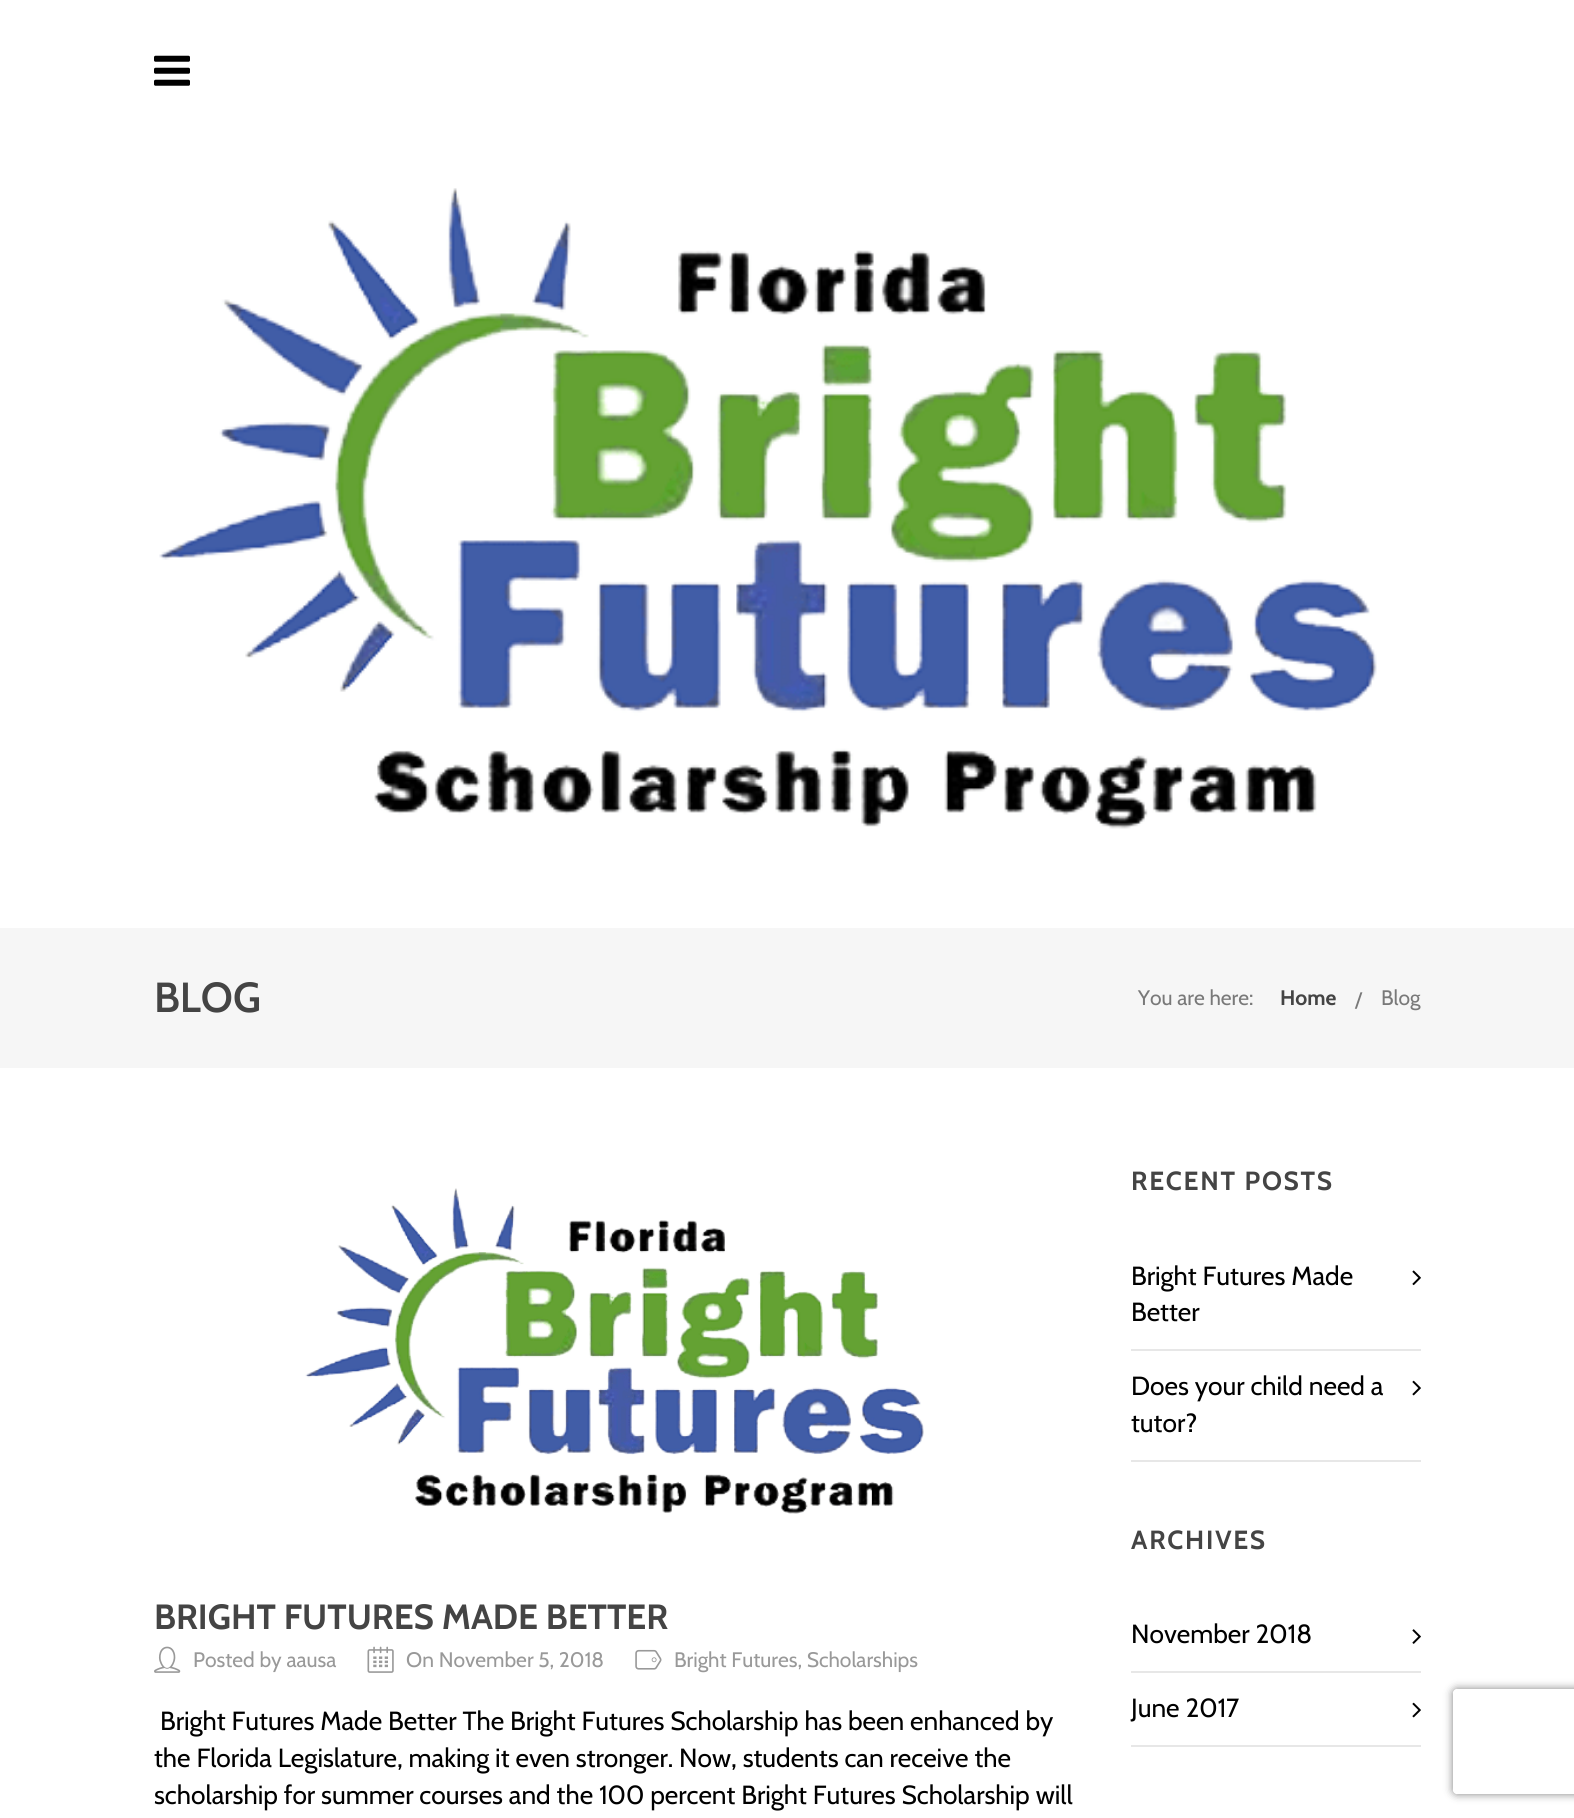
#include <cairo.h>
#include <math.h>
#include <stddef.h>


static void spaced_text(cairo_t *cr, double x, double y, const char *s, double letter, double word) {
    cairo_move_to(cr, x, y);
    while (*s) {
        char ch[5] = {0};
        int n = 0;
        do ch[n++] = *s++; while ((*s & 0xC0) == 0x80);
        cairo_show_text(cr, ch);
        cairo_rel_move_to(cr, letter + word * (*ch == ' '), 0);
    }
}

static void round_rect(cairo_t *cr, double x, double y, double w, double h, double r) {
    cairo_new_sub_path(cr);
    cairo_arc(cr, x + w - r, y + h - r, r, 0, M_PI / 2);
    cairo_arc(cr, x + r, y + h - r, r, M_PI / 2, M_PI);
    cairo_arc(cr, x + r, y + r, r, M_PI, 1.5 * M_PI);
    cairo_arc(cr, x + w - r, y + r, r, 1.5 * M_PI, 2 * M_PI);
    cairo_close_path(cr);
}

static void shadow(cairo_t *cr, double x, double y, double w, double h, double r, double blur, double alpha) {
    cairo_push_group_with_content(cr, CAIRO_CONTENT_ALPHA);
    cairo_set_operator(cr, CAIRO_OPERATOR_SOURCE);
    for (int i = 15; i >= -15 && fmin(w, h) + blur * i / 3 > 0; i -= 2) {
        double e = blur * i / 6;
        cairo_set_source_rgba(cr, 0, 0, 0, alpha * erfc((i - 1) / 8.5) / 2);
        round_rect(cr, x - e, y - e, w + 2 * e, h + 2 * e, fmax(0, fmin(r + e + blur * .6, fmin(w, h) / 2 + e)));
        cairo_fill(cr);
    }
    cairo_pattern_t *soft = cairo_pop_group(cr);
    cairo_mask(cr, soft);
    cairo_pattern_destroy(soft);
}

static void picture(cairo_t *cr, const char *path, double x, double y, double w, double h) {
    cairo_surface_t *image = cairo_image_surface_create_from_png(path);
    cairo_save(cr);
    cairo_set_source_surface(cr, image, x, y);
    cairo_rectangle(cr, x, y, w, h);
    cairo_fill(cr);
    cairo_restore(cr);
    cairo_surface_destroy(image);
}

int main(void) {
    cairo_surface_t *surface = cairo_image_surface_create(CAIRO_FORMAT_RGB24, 1574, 1818);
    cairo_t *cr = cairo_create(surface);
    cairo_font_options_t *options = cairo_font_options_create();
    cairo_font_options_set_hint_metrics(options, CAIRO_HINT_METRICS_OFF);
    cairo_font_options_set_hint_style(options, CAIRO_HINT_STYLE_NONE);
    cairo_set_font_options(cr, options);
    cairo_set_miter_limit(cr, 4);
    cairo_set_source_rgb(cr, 1, 1, 1);
    cairo_paint(cr);
    picture(cr, "img1.png", 154, 55, 36, 31);
    picture(cr, "img2.png", 159, 188, 1218, 641);
    cairo_set_source_rgb(cr, 0.961, 0.961, 0.961);
    cairo_rectangle(cr, 0, 928, 1574, 140);
    cairo_fill(cr);
    cairo_select_font_face(cr, "Cabin SemiBold", CAIRO_FONT_SLANT_NORMAL, CAIRO_FONT_WEIGHT_NORMAL);
    cairo_set_font_size(cr, 42);
    cairo_set_source_rgb(cr, 0.267, 0.267, 0.267);
    cairo_move_to(cr, 154, 1012);
    cairo_show_text(cr, "BLOG");
    cairo_select_font_face(cr, "Cabin", CAIRO_FONT_SLANT_NORMAL, CAIRO_FONT_WEIGHT_NORMAL);
    cairo_set_font_size(cr, 21);
    cairo_set_source_rgb(cr, 0.475, 0.475, 0.475);
    cairo_move_to(cr, 1138, 1005);
    cairo_show_text(cr, "You are here:");
    cairo_select_font_face(cr, "Cabin", CAIRO_FONT_SLANT_NORMAL, CAIRO_FONT_WEIGHT_BOLD);
    cairo_set_source_rgb(cr, 0.267, 0.267, 0.267);
    cairo_move_to(cr, 1280, 1005);
    cairo_show_text(cr, "Home");
    cairo_select_font_face(cr, "Cabin", CAIRO_FONT_SLANT_NORMAL, CAIRO_FONT_WEIGHT_NORMAL);
    cairo_set_source_rgb(cr, 0.475, 0.475, 0.475);
    cairo_move_to(cr, 1355, 1007);
    cairo_show_text(cr, "/");
    cairo_move_to(cr, 1381, 1005);
    cairo_show_text(cr, "Blog");
    picture(cr, "img3.png", 305, 1188, 619, 326);
    cairo_select_font_face(cr, "Cabin", CAIRO_FONT_SLANT_NORMAL, CAIRO_FONT_WEIGHT_BOLD);
    cairo_set_font_size(cr, 35);
    cairo_set_source_rgb(cr, 0.267, 0.267, 0.267);
    cairo_move_to(cr, 154, 1629);
    cairo_show_text(cr, "BRIGHT FUTURES MADE BETTER");
    picture(cr, "img4.png", 154, 1646, 27, 27);
    cairo_select_font_face(cr, "Cabin", CAIRO_FONT_SLANT_NORMAL, CAIRO_FONT_WEIGHT_NORMAL);
    cairo_set_font_size(cr, 21);
    cairo_set_source_rgb(cr, 0.6, 0.6, 0.6);
    cairo_move_to(cr, 193, 1667);
    cairo_show_text(cr, "Posted by aausa");
    picture(cr, "img5.png", 367, 1646, 27, 27);
    cairo_move_to(cr, 406, 1667);
    cairo_show_text(cr, "On November 5, 2018");
    picture(cr, "img6.png", 635, 1649, 27, 21);
    cairo_move_to(cr, 674, 1667);
    cairo_show_text(cr, "Bright Futures, Scholarships");
    cairo_set_font_size(cr, 26.25);
    cairo_set_source_rgb(cr, 0, 0, 0);
    cairo_move_to(cr, 160, 1730);
    cairo_show_text(cr, "Bright Futures Made Better The Bright Futures Scholarship has been enhanced by");
    cairo_move_to(cr, 154, 1767);
    cairo_show_text(cr, "the Florida Legislature, making it even stronger. Now, students can receive the");
    cairo_move_to(cr, 154, 1804);
    cairo_show_text(cr, "scholarship for summer courses and the 100 percent Bright Futures Scholarship will");
    cairo_select_font_face(cr, "Cabin", CAIRO_FONT_SLANT_NORMAL, CAIRO_FONT_WEIGHT_BOLD);
    cairo_set_source_rgb(cr, 0.267, 0.267, 0.267);
    spaced_text(cr, 1131, 1190, "RECENT POSTS", 1.75, 0);
    cairo_set_source_rgb(cr, 0.906, 0.906, 0.906);
    cairo_rectangle(cr, 1131, 1349, 290, 2);
    cairo_fill(cr);
    cairo_select_font_face(cr, "Cabin", CAIRO_FONT_SLANT_NORMAL, CAIRO_FONT_WEIGHT_NORMAL);
    cairo_set_source_rgb(cr, 0, 0, 0);
    cairo_move_to(cr, 1131, 1285);
    cairo_show_text(cr, "Bright Futures Made");
    picture(cr, "img7.png", 1412, 1270, 9, 16);
    cairo_move_to(cr, 1131, 1321);
    cairo_show_text(cr, "Better");
    cairo_set_source_rgb(cr, 0.906, 0.906, 0.906);
    cairo_rectangle(cr, 1131, 1460, 290, 2);
    cairo_fill(cr);
    cairo_set_source_rgb(cr, 0, 0, 0);
    cairo_move_to(cr, 1131, 1395);
    cairo_show_text(cr, "Does your child need a");
    picture(cr, "img8.png", 1412, 1380, 9, 16);
    cairo_move_to(cr, 1131, 1432);
    cairo_show_text(cr, "tutor?");
    cairo_select_font_face(cr, "Cabin", CAIRO_FONT_SLANT_NORMAL, CAIRO_FONT_WEIGHT_BOLD);
    cairo_set_source_rgb(cr, 0.267, 0.267, 0.267);
    spaced_text(cr, 1131, 1549, "ARCHIVES", 1.75, 0);
    cairo_set_source_rgb(cr, 0.906, 0.906, 0.906);
    cairo_rectangle(cr, 1131, 1671, 290, 2);
    cairo_fill(cr);
    cairo_select_font_face(cr, "Cabin", CAIRO_FONT_SLANT_NORMAL, CAIRO_FONT_WEIGHT_NORMAL);
    cairo_set_source_rgb(cr, 0, 0, 0);
    cairo_move_to(cr, 1131, 1643);
    cairo_show_text(cr, "November 2018");
    picture(cr, "img9.png", 1412, 1629, 9, 15);
    cairo_set_source_rgb(cr, 0.906, 0.906, 0.906);
    cairo_rectangle(cr, 1131, 1745, 290, 2);
    cairo_fill(cr);
    cairo_set_source_rgb(cr, 0, 0, 0);
    cairo_move_to(cr, 1131, 1717);
    cairo_show_text(cr, "June 2017");
    picture(cr, "img8.png", 1412, 1702, 9, 16);
    cairo_save(cr);
    cairo_set_fill_rule(cr, CAIRO_FILL_RULE_EVEN_ODD);
    cairo_new_path(cr);
    cairo_move_to(cr, 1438, 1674);
    cairo_line_to(cr, 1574, 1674);
    cairo_line_to(cr, 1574, 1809);
    cairo_line_to(cr, 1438, 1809);
    cairo_close_path(cr);
    cairo_move_to(cr, 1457, 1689);
    cairo_line_to(cr, 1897, 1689);
    cairo_curve_to(cr, 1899, 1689, 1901, 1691, 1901, 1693);
    cairo_line_to(cr, 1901, 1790);
    cairo_curve_to(cr, 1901, 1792, 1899, 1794, 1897, 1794);
    cairo_line_to(cr, 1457, 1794);
    cairo_curve_to(cr, 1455, 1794, 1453, 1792, 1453, 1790);
    cairo_line_to(cr, 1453, 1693);
    cairo_curve_to(cr, 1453, 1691, 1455, 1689, 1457, 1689);
    cairo_close_path(cr);
    cairo_clip(cr);
    cairo_set_source_rgb(cr, 0.502, 0.502, 0.502);
    shadow(cr, 1453, 1689, 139, 105, 4, 4.5, 1);
    cairo_restore(cr);
    cairo_surface_write_to_png(surface, "page.png");
    cairo_font_options_destroy(options);
    cairo_destroy(cr);
    cairo_surface_destroy(surface);
    return 0;
}
